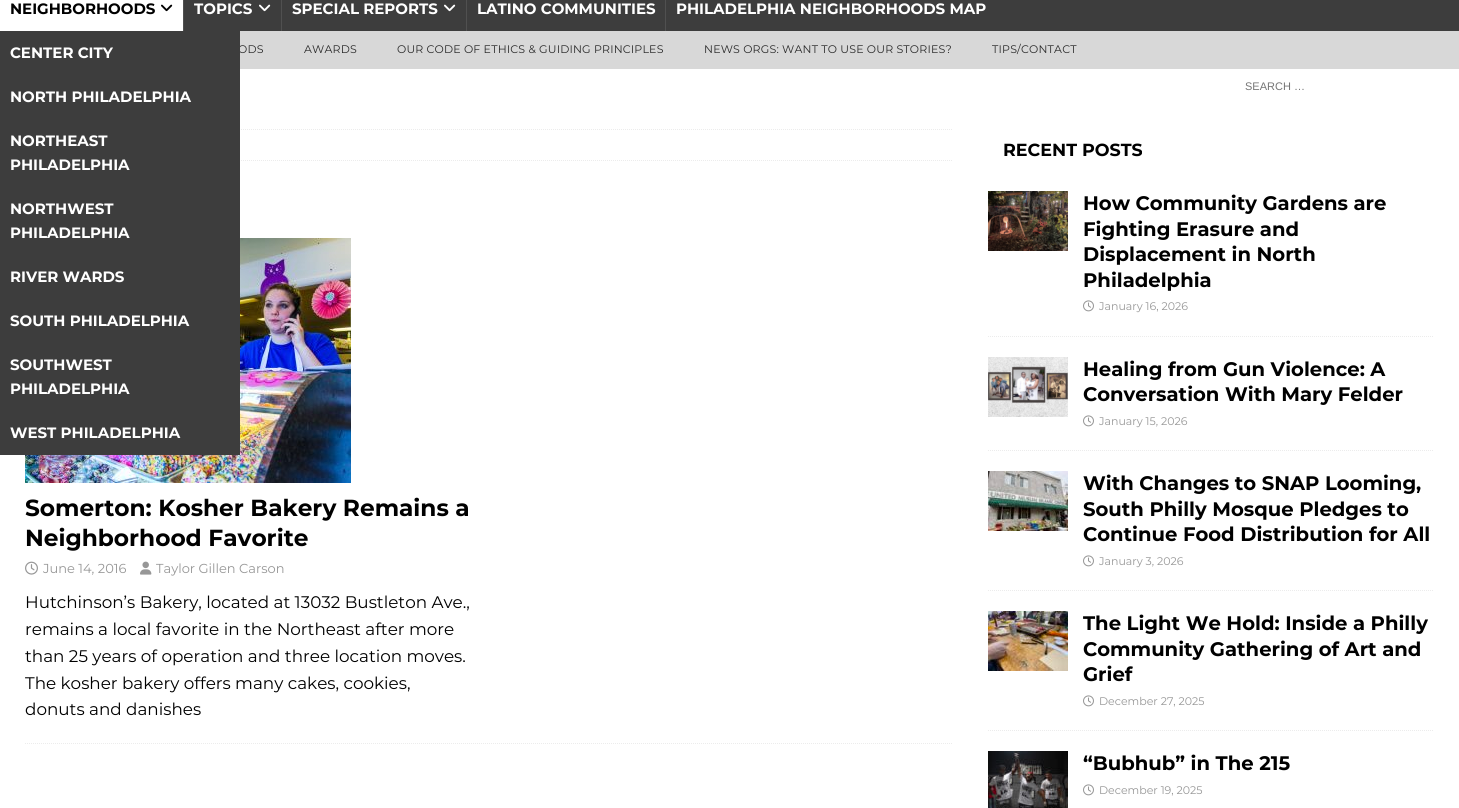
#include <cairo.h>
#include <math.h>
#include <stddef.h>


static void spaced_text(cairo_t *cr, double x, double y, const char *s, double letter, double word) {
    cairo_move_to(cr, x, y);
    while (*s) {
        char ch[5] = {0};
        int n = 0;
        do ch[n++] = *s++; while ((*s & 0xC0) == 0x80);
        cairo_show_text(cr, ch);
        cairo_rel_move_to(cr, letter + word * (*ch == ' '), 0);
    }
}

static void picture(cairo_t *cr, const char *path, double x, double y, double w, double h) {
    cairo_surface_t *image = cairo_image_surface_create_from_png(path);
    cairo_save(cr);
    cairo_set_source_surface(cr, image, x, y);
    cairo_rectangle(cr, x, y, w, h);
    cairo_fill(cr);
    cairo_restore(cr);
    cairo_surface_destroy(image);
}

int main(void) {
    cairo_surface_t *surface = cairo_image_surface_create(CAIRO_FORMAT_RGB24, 1459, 808);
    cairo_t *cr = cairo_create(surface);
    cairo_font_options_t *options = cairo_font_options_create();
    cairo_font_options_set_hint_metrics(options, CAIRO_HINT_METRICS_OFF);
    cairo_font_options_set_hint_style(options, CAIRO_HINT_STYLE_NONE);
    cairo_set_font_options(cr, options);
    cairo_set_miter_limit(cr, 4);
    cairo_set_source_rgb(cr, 0.239, 0.239, 0.239);
    cairo_paint(cr);
    cairo_set_source_rgb(cr, 1, 1, 1);
    cairo_rectangle(cr, 0, 0, 183, 31);
    cairo_fill(cr);
    cairo_select_font_face(cr, "Montserrat", CAIRO_FONT_SLANT_NORMAL, CAIRO_FONT_WEIGHT_BOLD);
    cairo_set_font_size(cr, 15);
    cairo_set_source_rgb(cr, 0, 0, 0);
    cairo_move_to(cr, 10, 14);
    cairo_show_text(cr, "NEIGHBORHOODS");
    picture(cr, "img1.png", 161, 4, 12, 8);
    cairo_set_source_rgb(cr, 0.847, 0.847, 0.847);
    cairo_rectangle(cr, 240, 31, 1219, 38);
    cairo_fill(cr);
    cairo_select_font_face(cr, "Montserrat", CAIRO_FONT_SLANT_NORMAL, CAIRO_FONT_WEIGHT_NORMAL);
    cairo_set_font_size(cr, 11);
    cairo_set_source_rgb(cr, 0.165, 0.165, 0.165);
    spaced_text(cr, 238, 53, "ODS", 0.2, 0);
    cairo_set_source_rgb(cr, 1, 1, 1);
    cairo_rectangle(cr, 0, 104, 1459, 704);
    cairo_fill(cr);
    cairo_new_path(cr);
    cairo_move_to(cr, 25, 129.5);
    cairo_line_to(cr, 953, 129.5);
    cairo_set_source_rgb(cr, 0.922, 0.922, 0.922);
    cairo_set_line_width(cr, 1);
    cairo_set_dash(cr, (double[]){1, 1}, 2, 0);
    cairo_stroke(cr);
    cairo_new_path(cr);
    cairo_move_to(cr, 25, 160.5);
    cairo_line_to(cr, 953, 160.5);
    cairo_stroke(cr);
    picture(cr, "img3.png", 25, 238, 326, 245);
    cairo_set_source_rgb(cr, 0.239, 0.239, 0.239);
    cairo_rectangle(cr, 0, 46, 240, 409);
    cairo_fill(cr);
    cairo_select_font_face(cr, "Montserrat", CAIRO_FONT_SLANT_NORMAL, CAIRO_FONT_WEIGHT_BOLD);
    cairo_set_font_size(cr, 15);
    cairo_set_source_rgb(cr, 1, 1, 1);
    cairo_move_to(cr, 10, 58);
    cairo_show_text(cr, "CENTER CITY");
    cairo_move_to(cr, 10, 102);
    cairo_show_text(cr, "NORTH PHILADELPHIA");
    cairo_move_to(cr, 10, 146);
    cairo_show_text(cr, "NORTHEAST");
    cairo_move_to(cr, 10, 170);
    cairo_show_text(cr, "PHILADELPHIA");
    cairo_move_to(cr, 10, 214);
    cairo_show_text(cr, "NORTHWEST");
    cairo_move_to(cr, 10, 238);
    cairo_show_text(cr, "PHILADELPHIA");
    cairo_move_to(cr, 10, 282);
    cairo_show_text(cr, "RIVER WARDS");
    cairo_move_to(cr, 10, 326);
    cairo_show_text(cr, "SOUTH PHILADELPHIA");
    cairo_move_to(cr, 10, 370);
    cairo_show_text(cr, "SOUTHWEST");
    cairo_move_to(cr, 10, 394);
    cairo_show_text(cr, "PHILADELPHIA");
    cairo_move_to(cr, 10, 438);
    cairo_show_text(cr, "WEST PHILADELPHIA");
    cairo_set_source_rgb(cr, 0.314, 0.314, 0.314);
    cairo_rectangle(cr, 183, 0, 1, 31);
    cairo_fill(cr);
    cairo_set_source_rgb(cr, 1, 1, 1);
    cairo_move_to(cr, 194, 14);
    cairo_show_text(cr, "TOPICS");
    picture(cr, "img2.png", 259, 4, 12, 8);
    cairo_set_source_rgb(cr, 0.314, 0.314, 0.314);
    cairo_rectangle(cr, 281, 0, 1, 31);
    cairo_fill(cr);
    cairo_set_source_rgb(cr, 1, 1, 1);
    cairo_move_to(cr, 292, 14);
    cairo_show_text(cr, "SPECIAL REPORTS");
    picture(cr, "img2.png", 444, 4, 12, 8);
    cairo_set_source_rgb(cr, 0.314, 0.314, 0.314);
    cairo_rectangle(cr, 466, 0, 1, 31);
    cairo_fill(cr);
    cairo_set_source_rgb(cr, 1, 1, 1);
    cairo_move_to(cr, 477, 14);
    cairo_show_text(cr, "LATINO COMMUNITIES");
    cairo_set_source_rgb(cr, 0.314, 0.314, 0.314);
    cairo_rectangle(cr, 665, 0, 1, 31);
    cairo_fill(cr);
    cairo_set_source_rgb(cr, 1, 1, 1);
    cairo_move_to(cr, 676, 14);
    cairo_show_text(cr, "PHILADELPHIA NEIGHBORHOODS MAP");
    cairo_select_font_face(cr, "Montserrat", CAIRO_FONT_SLANT_NORMAL, CAIRO_FONT_WEIGHT_NORMAL);
    cairo_set_font_size(cr, 11);
    cairo_set_source_rgb(cr, 0.165, 0.165, 0.165);
    spaced_text(cr, 304, 53, "AWARDS", 0.2, 0);
    spaced_text(cr, 397, 53, "OUR CODE OF ETHICS & GUIDING PRINCIPLES", 0.2, 0);
    spaced_text(cr, 704, 53, "NEWS ORGS: WANT TO USE OUR STORIES?", 0.2, 0);
    spaced_text(cr, 992, 53, "TIPS/CONTACT", 0.2, 0);
    cairo_set_source_rgb(cr, 1, 1, 1);
    cairo_rectangle(cr, 240, 69, 1219, 35);
    cairo_fill(cr);
    cairo_select_font_face(cr, "Liberation Sans", CAIRO_FONT_SLANT_NORMAL, CAIRO_FONT_WEIGHT_NORMAL);
    cairo_set_source_rgb(cr, 0.459, 0.459, 0.459);
    cairo_move_to(cr, 1245, 90);
    cairo_show_text(cr, "SEARCH …");
    cairo_new_path(cr);
    cairo_move_to(cr, 25, 743.5);
    cairo_line_to(cr, 953, 743.5);
    cairo_set_source_rgb(cr, 0.922, 0.922, 0.922);
    cairo_stroke(cr);
    cairo_select_font_face(cr, "Montserrat", CAIRO_FONT_SLANT_NORMAL, CAIRO_FONT_WEIGHT_BOLD);
    cairo_set_font_size(cr, 23.25);
    cairo_set_source_rgb(cr, 0, 0, 0);
    cairo_move_to(cr, 25, 516);
    cairo_show_text(cr, "Somerton: Kosher Bakery Remains a");
    cairo_move_to(cr, 25, 546);
    cairo_show_text(cr, "Neighborhood Favorite");
    picture(cr, "img4.png", 25, 561, 13, 14);
    cairo_select_font_face(cr, "Montserrat", CAIRO_FONT_SLANT_NORMAL, CAIRO_FONT_WEIGHT_NORMAL);
    cairo_set_font_size(cr, 13);
    cairo_set_source_rgb(cr, 0.592, 0.592, 0.592);
    cairo_move_to(cr, 43, 573);
    cairo_show_text(cr, "June 14, 2016");
    picture(cr, "img5.png", 140, 561, 12, 14);
    cairo_move_to(cr, 156, 573);
    cairo_show_text(cr, "Taylor Gillen Carson");
    cairo_set_font_size(cr, 16.8);
    cairo_set_source_rgb(cr, 0, 0, 0);
    cairo_move_to(cr, 25, 608);
    cairo_show_text(cr, "Hutchinson’s Bakery, located at 13032 Bustleton Ave.,");
    cairo_move_to(cr, 25, 635);
    cairo_show_text(cr, "remains a local favorite in the Northeast after more");
    cairo_move_to(cr, 25, 662);
    cairo_show_text(cr, "than 25 years of operation and three location moves.");
    cairo_move_to(cr, 25, 689);
    cairo_show_text(cr, "The kosher bakery offers many cakes, cookies,");
    cairo_move_to(cr, 25, 715);
    cairo_show_text(cr, "donuts and danishes");
    cairo_select_font_face(cr, "Montserrat", CAIRO_FONT_SLANT_NORMAL, CAIRO_FONT_WEIGHT_BOLD);
    cairo_set_font_size(cr, 17.5);
    cairo_move_to(cr, 1003, 156);
    cairo_show_text(cr, "RECENT POSTS");
    cairo_new_path(cr);
    cairo_move_to(cr, 988, 336.5);
    cairo_line_to(cr, 1434, 336.5);
    cairo_set_source_rgb(cr, 0.922, 0.922, 0.922);
    cairo_stroke(cr);
    picture(cr, "img6.png", 988, 191, 80, 60);
    cairo_set_font_size(cr, 19.6);
    cairo_set_source_rgb(cr, 0, 0, 0);
    cairo_move_to(cr, 1083, 210);
    cairo_show_text(cr, "How Community Gardens are");
    cairo_move_to(cr, 1083, 236);
    cairo_show_text(cr, "Fighting Erasure and");
    cairo_move_to(cr, 1083, 261);
    cairo_show_text(cr, "Displacement in North");
    cairo_move_to(cr, 1083, 287);
    cairo_show_text(cr, "Philadelphia");
    picture(cr, "img7.png", 1083, 300, 11, 12);
    cairo_select_font_face(cr, "Montserrat", CAIRO_FONT_SLANT_NORMAL, CAIRO_FONT_WEIGHT_NORMAL);
    cairo_set_font_size(cr, 11);
    cairo_set_source_rgb(cr, 0.592, 0.592, 0.592);
    cairo_move_to(cr, 1099, 310);
    cairo_show_text(cr, "January 16, 2026");
    cairo_new_path(cr);
    cairo_move_to(cr, 988, 450.5);
    cairo_line_to(cr, 1434, 450.5);
    cairo_set_source_rgb(cr, 0.922, 0.922, 0.922);
    cairo_stroke(cr);
    picture(cr, "img8.png", 988, 357, 80, 60);
    cairo_select_font_face(cr, "Montserrat", CAIRO_FONT_SLANT_NORMAL, CAIRO_FONT_WEIGHT_BOLD);
    cairo_set_font_size(cr, 19.6);
    cairo_set_source_rgb(cr, 0, 0, 0);
    cairo_move_to(cr, 1083, 376);
    cairo_show_text(cr, "Healing from Gun Violence: A");
    cairo_move_to(cr, 1083, 401);
    cairo_show_text(cr, "Conversation With Mary Felder");
    picture(cr, "img7.png", 1083, 415, 11, 12);
    cairo_select_font_face(cr, "Montserrat", CAIRO_FONT_SLANT_NORMAL, CAIRO_FONT_WEIGHT_NORMAL);
    cairo_set_font_size(cr, 11);
    cairo_set_source_rgb(cr, 0.592, 0.592, 0.592);
    cairo_move_to(cr, 1099, 425);
    cairo_show_text(cr, "January 15, 2026");
    cairo_new_path(cr);
    cairo_move_to(cr, 988, 590.5);
    cairo_line_to(cr, 1434, 590.5);
    cairo_set_source_rgb(cr, 0.922, 0.922, 0.922);
    cairo_stroke(cr);
    picture(cr, "img9.png", 988, 471, 80, 60);
    cairo_select_font_face(cr, "Montserrat", CAIRO_FONT_SLANT_NORMAL, CAIRO_FONT_WEIGHT_BOLD);
    cairo_set_font_size(cr, 19.6);
    cairo_set_source_rgb(cr, 0, 0, 0);
    cairo_move_to(cr, 1083, 490);
    cairo_show_text(cr, "With Changes to SNAP Looming,");
    cairo_move_to(cr, 1083, 516);
    cairo_show_text(cr, "South Philly Mosque Pledges to");
    cairo_move_to(cr, 1083, 541);
    cairo_show_text(cr, "Continue Food Distribution for All");
    picture(cr, "img7.png", 1083, 555, 11, 12);
    cairo_select_font_face(cr, "Montserrat", CAIRO_FONT_SLANT_NORMAL, CAIRO_FONT_WEIGHT_NORMAL);
    cairo_set_font_size(cr, 11);
    cairo_set_source_rgb(cr, 0.592, 0.592, 0.592);
    cairo_move_to(cr, 1099, 565);
    cairo_show_text(cr, "January 3, 2026");
    cairo_new_path(cr);
    cairo_move_to(cr, 988, 730.5);
    cairo_line_to(cr, 1434, 730.5);
    cairo_set_source_rgb(cr, 0.922, 0.922, 0.922);
    cairo_stroke(cr);
    picture(cr, "img10.png", 988, 611, 80, 60);
    cairo_save(cr);
    cairo_rectangle(cr, 1083, 611, 351, 99);
    cairo_clip(cr);
    cairo_select_font_face(cr, "Montserrat", CAIRO_FONT_SLANT_NORMAL, CAIRO_FONT_WEIGHT_BOLD);
    cairo_set_font_size(cr, 19.6);
    cairo_set_source_rgb(cr, 0, 0, 0);
    cairo_move_to(cr, 1083, 630);
    cairo_show_text(cr, "The Light We Hold: Inside a Philly");
    cairo_restore(cr);
    cairo_select_font_face(cr, "Montserrat", CAIRO_FONT_SLANT_NORMAL, CAIRO_FONT_WEIGHT_BOLD);
    cairo_set_font_size(cr, 19.6);
    cairo_set_source_rgb(cr, 0, 0, 0);
    cairo_move_to(cr, 1083, 656);
    cairo_show_text(cr, "Community Gathering of Art and");
    cairo_move_to(cr, 1083, 681);
    cairo_show_text(cr, "Grief");
    picture(cr, "img7.png", 1083, 695, 11, 12);
    cairo_select_font_face(cr, "Montserrat", CAIRO_FONT_SLANT_NORMAL, CAIRO_FONT_WEIGHT_NORMAL);
    cairo_set_font_size(cr, 11);
    cairo_set_source_rgb(cr, 0.592, 0.592, 0.592);
    cairo_move_to(cr, 1099, 705);
    cairo_show_text(cr, "December 27, 2025");
    picture(cr, "img11.png", 988, 751, 80, 57);
    cairo_select_font_face(cr, "Montserrat", CAIRO_FONT_SLANT_NORMAL, CAIRO_FONT_WEIGHT_BOLD);
    cairo_set_font_size(cr, 19.6);
    cairo_set_source_rgb(cr, 0, 0, 0);
    cairo_move_to(cr, 1083, 770);
    cairo_show_text(cr, "“Bubhub” in The 215");
    picture(cr, "img7.png", 1083, 784, 11, 12);
    cairo_select_font_face(cr, "Montserrat", CAIRO_FONT_SLANT_NORMAL, CAIRO_FONT_WEIGHT_NORMAL);
    cairo_set_font_size(cr, 11);
    cairo_set_source_rgb(cr, 0.592, 0.592, 0.592);
    cairo_move_to(cr, 1099, 794);
    cairo_show_text(cr, "December 19, 2025");
    cairo_surface_write_to_png(surface, "page.png");
    cairo_font_options_destroy(options);
    cairo_destroy(cr);
    cairo_surface_destroy(surface);
    return 0;
}
